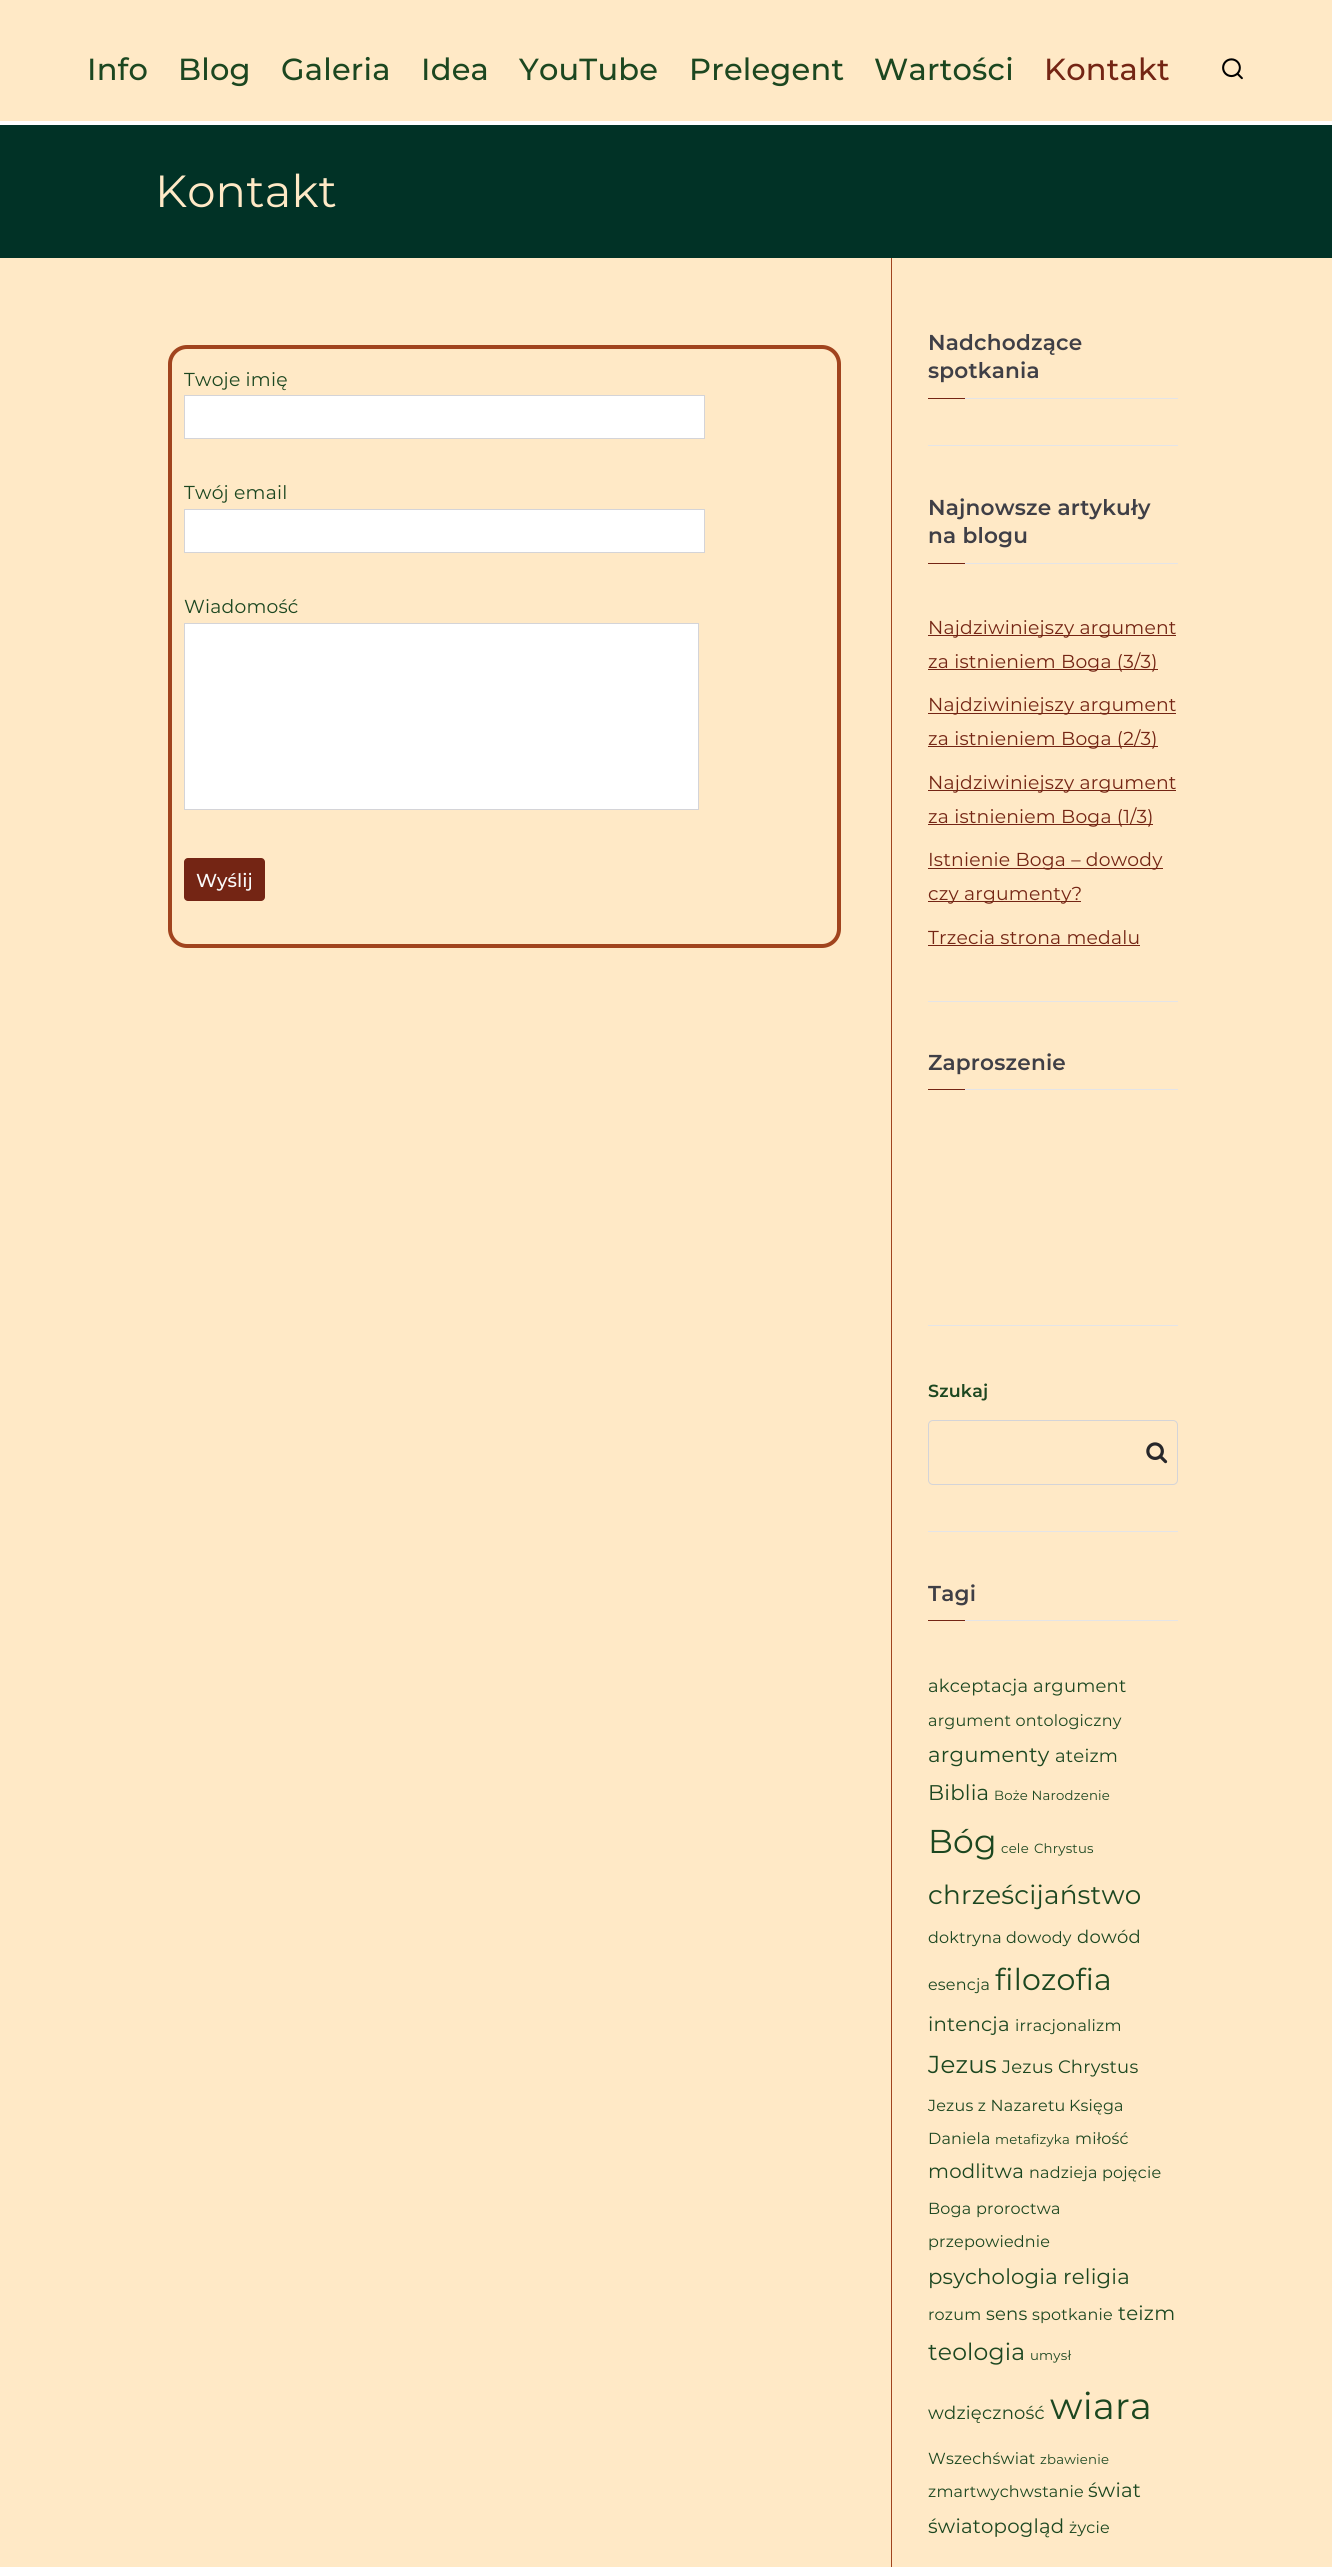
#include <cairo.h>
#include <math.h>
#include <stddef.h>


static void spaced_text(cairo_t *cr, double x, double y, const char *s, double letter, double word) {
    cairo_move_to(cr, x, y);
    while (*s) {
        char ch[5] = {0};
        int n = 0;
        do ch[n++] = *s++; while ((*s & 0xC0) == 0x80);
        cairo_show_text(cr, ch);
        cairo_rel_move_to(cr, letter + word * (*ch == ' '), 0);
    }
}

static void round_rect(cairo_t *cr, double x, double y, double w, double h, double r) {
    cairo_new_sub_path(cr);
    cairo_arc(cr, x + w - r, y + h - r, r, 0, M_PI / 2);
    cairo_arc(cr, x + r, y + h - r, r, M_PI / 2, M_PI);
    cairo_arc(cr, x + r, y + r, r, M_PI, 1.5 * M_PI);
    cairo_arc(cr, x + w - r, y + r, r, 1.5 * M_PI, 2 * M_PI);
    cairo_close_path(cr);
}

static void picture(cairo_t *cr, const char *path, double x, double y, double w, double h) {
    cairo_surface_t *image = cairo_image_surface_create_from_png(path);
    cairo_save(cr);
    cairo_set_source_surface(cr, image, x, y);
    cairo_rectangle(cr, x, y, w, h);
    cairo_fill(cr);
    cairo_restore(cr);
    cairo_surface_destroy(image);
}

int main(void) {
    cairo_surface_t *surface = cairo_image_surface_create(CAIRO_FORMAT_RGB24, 1332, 2567);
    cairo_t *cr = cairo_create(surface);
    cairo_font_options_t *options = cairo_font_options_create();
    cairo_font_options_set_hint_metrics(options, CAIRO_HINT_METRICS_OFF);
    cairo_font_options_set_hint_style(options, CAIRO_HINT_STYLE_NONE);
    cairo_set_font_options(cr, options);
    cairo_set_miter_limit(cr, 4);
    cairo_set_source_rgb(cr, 1, 1, 1);
    cairo_paint(cr);
    cairo_set_source_rgb(cr, 1, 0.914, 0.776);
    cairo_rectangle(cr, 0, 0, 1332, 121);
    cairo_fill(cr);
    cairo_select_font_face(cr, "Montserrat Medium", CAIRO_FONT_SLANT_NORMAL, CAIRO_FONT_WEIGHT_NORMAL);
    cairo_set_font_size(cr, 30.5);
    cairo_set_source_rgb(cr, 0.11, 0.278, 0.125);
    spaced_text(cr, 87, 80, "Info", 0.2, 0);
    spaced_text(cr, 178, 80, "Blog", 0.2, 0);
    spaced_text(cr, 281, 80, "Galeria", 0.2, 0);
    spaced_text(cr, 421, 80, "Idea", 0.2, 0);
    spaced_text(cr, 519, 80, "YouTube", 0.2, 0);
    spaced_text(cr, 689, 80, "Prelegent", 0.2, 0);
    spaced_text(cr, 874, 80, "Wartości", 0.2, 0);
    cairo_set_source_rgb(cr, 0.455, 0.145, 0.082);
    spaced_text(cr, 1044, 80, "Kontakt", 0.2, 0);
    picture(cr, "img1.png", 1222, 58, 21, 22);
    cairo_set_source_rgb(cr, 0.004, 0.196, 0.149);
    cairo_rectangle(cr, 0, 125, 1332, 133);
    cairo_fill(cr);
    cairo_select_font_face(cr, "Montserrat", CAIRO_FONT_SLANT_NORMAL, CAIRO_FONT_WEIGHT_NORMAL);
    cairo_set_font_size(cr, 45);
    cairo_set_source_rgb(cr, 1, 0.914, 0.776);
    spaced_text(cr, 155, 207, "Kontakt", 0.2, 0);
    cairo_rectangle(cr, 0, 258, 1332, 2309);
    cairo_fill(cr);
    round_rect(cr, 170, 347, 669, 599, 17);
    cairo_set_source_rgb(cr, 0.631, 0.267, 0.118);
    cairo_set_line_width(cr, 4);
    cairo_stroke(cr);
    cairo_set_font_size(cr, 18.75);
    cairo_set_source_rgb(cr, 0.11, 0.278, 0.125);
    spaced_text(cr, 184, 386, "Twoje imię", 0.2, 0);
    cairo_set_source_rgb(cr, 1, 1, 1);
    cairo_rectangle(cr, 184.5, 395.5, 520, 43);
    cairo_fill_preserve(cr);
    cairo_set_source_rgb(cr, 0.831, 0.831, 0.847);
    cairo_set_line_width(cr, 1);
    cairo_stroke(cr);
    cairo_set_source_rgb(cr, 0.11, 0.278, 0.125);
    spaced_text(cr, 184, 499, "Twój email", 0.2, 0);
    cairo_set_source_rgb(cr, 1, 1, 1);
    cairo_rectangle(cr, 184.5, 509.5, 520, 43);
    cairo_fill_preserve(cr);
    cairo_set_source_rgb(cr, 0.831, 0.831, 0.847);
    cairo_stroke(cr);
    cairo_set_source_rgb(cr, 0.11, 0.278, 0.125);
    spaced_text(cr, 184, 613, "Wiadomość", 0.2, 0);
    cairo_set_source_rgb(cr, 1, 1, 1);
    cairo_rectangle(cr, 184.5, 623.5, 514, 186);
    cairo_fill_preserve(cr);
    cairo_set_source_rgb(cr, 0.831, 0.831, 0.847);
    cairo_stroke(cr);
    cairo_set_source_rgb(cr, 0.455, 0.145, 0.082);
    round_rect(cr, 184, 858, 81, 43, 4);
    cairo_fill(cr);
    cairo_select_font_face(cr, "Montserrat Medium", CAIRO_FONT_SLANT_NORMAL, CAIRO_FONT_WEIGHT_NORMAL);
    cairo_set_source_rgb(cr, 0.98, 0.98, 0.98);
    cairo_move_to(cr, 196, 887);
    cairo_show_text(cr, "Wyślij");
    cairo_set_source_rgb(cr, 0.631, 0.267, 0.118);
    cairo_rectangle(cr, 891, 258, 1, 2309);
    cairo_fill(cr);
    cairo_set_source_rgb(cr, 0.894, 0.894, 0.906);
    cairo_rectangle(cr, 965, 398, 213, 1);
    cairo_fill(cr);
    cairo_select_font_face(cr, "Montserrat SemiBold", CAIRO_FONT_SLANT_NORMAL, CAIRO_FONT_WEIGHT_NORMAL);
    cairo_set_font_size(cr, 21.6);
    cairo_set_source_rgb(cr, 0.247, 0.247, 0.275);
    spaced_text(cr, 928, 350, "Nadchodzące", 0.2, 0);
    spaced_text(cr, 928, 378, "spotkania", 0.2, 0);
    cairo_set_source_rgb(cr, 0.455, 0.145, 0.082);
    cairo_rectangle(cr, 928, 398, 37, 1);
    cairo_fill(cr);
    cairo_set_source_rgb(cr, 0.894, 0.894, 0.906);
    cairo_rectangle(cr, 928, 445, 250, 1);
    cairo_fill(cr);
    cairo_rectangle(cr, 965, 563, 213, 1);
    cairo_fill(cr);
    cairo_set_source_rgb(cr, 0.247, 0.247, 0.275);
    spaced_text(cr, 928, 515, "Najnowsze artykuły", 0.2, 0);
    spaced_text(cr, 928, 543, "na blogu", 0.2, 0);
    cairo_set_source_rgb(cr, 0.455, 0.145, 0.082);
    cairo_rectangle(cr, 928, 563, 37, 1);
    cairo_fill(cr);
    cairo_rectangle(cr, 928, 635, 248, 1);
    cairo_fill(cr);
    cairo_select_font_face(cr, "Montserrat", CAIRO_FONT_SLANT_NORMAL, CAIRO_FONT_WEIGHT_NORMAL);
    cairo_set_font_size(cr, 18.75);
    spaced_text(cr, 928, 634, "Najdziwiniejszy argument", 0.2, 0);
    cairo_rectangle(cr, 928, 669, 230, 1);
    cairo_fill(cr);
    spaced_text(cr, 928, 668, "za istnieniem Boga (3/3)", 0.2, 0);
    cairo_rectangle(cr, 928, 713, 248, 1);
    cairo_fill(cr);
    spaced_text(cr, 928, 711, "Najdziwiniejszy argument", 0.2, 0);
    cairo_rectangle(cr, 928, 746, 230, 1);
    cairo_fill(cr);
    spaced_text(cr, 928, 745, "za istnieniem Boga (2/3)", 0.2, 0);
    cairo_rectangle(cr, 928, 790, 248, 1);
    cairo_fill(cr);
    spaced_text(cr, 928, 789, "Najdziwiniejszy argument", 0.2, 0);
    cairo_rectangle(cr, 928, 824, 225, 1);
    cairo_fill(cr);
    spaced_text(cr, 928, 823, "za istnieniem Boga (1/3)", 0.2, 0);
    cairo_rectangle(cr, 928, 868, 235, 1);
    cairo_fill(cr);
    spaced_text(cr, 928, 866, "Istnienie Boga – dowody", 0.2, 0);
    cairo_rectangle(cr, 928, 901, 153, 1);
    cairo_fill(cr);
    spaced_text(cr, 928, 900, "czy argumenty?", 0.2, 0);
    spaced_text(cr, 928, 944, "Trzecia strona medalu", 0.2, 0);
    cairo_rectangle(cr, 928, 945, 212, 1);
    cairo_fill(cr);
    cairo_set_source_rgb(cr, 0.894, 0.894, 0.906);
    cairo_rectangle(cr, 928, 1001, 250, 1);
    cairo_fill(cr);
    cairo_rectangle(cr, 965, 1089, 213, 1);
    cairo_fill(cr);
    cairo_select_font_face(cr, "Montserrat SemiBold", CAIRO_FONT_SLANT_NORMAL, CAIRO_FONT_WEIGHT_NORMAL);
    cairo_set_font_size(cr, 21.6);
    cairo_set_source_rgb(cr, 0.247, 0.247, 0.275);
    spaced_text(cr, 928, 1070, "Zaproszenie", 0.2, 0);
    cairo_set_source_rgb(cr, 0.455, 0.145, 0.082);
    cairo_rectangle(cr, 928, 1089, 37, 1);
    cairo_fill(cr);
    cairo_set_source_rgb(cr, 0.894, 0.894, 0.906);
    cairo_rectangle(cr, 928, 1325, 250, 1);
    cairo_fill(cr);
    cairo_set_font_size(cr, 17.5);
    cairo_set_source_rgb(cr, 0.11, 0.278, 0.125);
    spaced_text(cr, 928, 1397, "Szukaj", 0.2, 0);
    round_rect(cr, 928.5, 1420.5, 249, 64, 4.5);
    cairo_set_source_rgb(cr, 0.831, 0.831, 0.847);
    cairo_stroke(cr);
    picture(cr, "img2.png", 1146, 1442, 22, 22);
    cairo_set_source_rgb(cr, 0.894, 0.894, 0.906);
    cairo_rectangle(cr, 928, 1531, 250, 1);
    cairo_fill(cr);
    cairo_rectangle(cr, 965, 1620, 213, 1);
    cairo_fill(cr);
    cairo_set_font_size(cr, 21.6);
    cairo_set_source_rgb(cr, 0.247, 0.247, 0.275);
    spaced_text(cr, 928, 1601, "Tagi", 0.2, 0);
    cairo_set_source_rgb(cr, 0.455, 0.145, 0.082);
    cairo_rectangle(cr, 928, 1620, 37, 1);
    cairo_fill(cr);
    cairo_select_font_face(cr, "Montserrat", CAIRO_FONT_SLANT_NORMAL, CAIRO_FONT_WEIGHT_NORMAL);
    cairo_set_font_size(cr, 18);
    cairo_set_source_rgb(cr, 0.11, 0.278, 0.125);
    spaced_text(cr, 928, 1692, "akceptacja argument", 0.2, 0);
    cairo_set_font_size(cr, 16);
    spaced_text(cr, 928, 1726, "argument ontologiczny", 0.2, 0);
    cairo_set_font_size(cr, 21.25);
    spaced_text(cr, 928, 1762, "argumenty", 0.2, 0);
    cairo_set_font_size(cr, 18);
    spaced_text(cr, 1055, 1762, "ateizm", 0.2, 0);
    cairo_set_font_size(cr, 21.25);
    spaced_text(cr, 928, 1800, "Biblia", 0.2, 0);
    cairo_set_font_size(cr, 13.25);
    spaced_text(cr, 994, 1800, "Boże Narodzenie", 0.2, 0);
    cairo_set_font_size(cr, 33);
    spaced_text(cr, 928, 1853, "Bóg", 0.2, 0);
    cairo_set_font_size(cr, 13.25);
    spaced_text(cr, 1001, 1853, "cele", 0.2, 0);
    spaced_text(cr, 1034, 1853, "Chrystus", 0.2, 0);
    cairo_set_font_size(cr, 26.25);
    spaced_text(cr, 928, 1904, "chrześcijaństwo", 0.2, 0);
    cairo_set_font_size(cr, 16);
    spaced_text(cr, 928, 1943, "doktryna", 0.2, 0);
    spaced_text(cr, 1006, 1943, "dowody", 0.2, 0);
    cairo_set_font_size(cr, 18);
    spaced_text(cr, 1077, 1943, "dowód", 0.2, 0);
    cairo_set_font_size(cr, 16);
    spaced_text(cr, 928, 1990, "esencja", 0.2, 0);
    cairo_set_font_size(cr, 30);
    spaced_text(cr, 995, 1990, "filozofia", 0.2, 0);
    cairo_set_font_size(cr, 19.75);
    spaced_text(cr, 928, 2031, "intencja", 0.2, 0);
    cairo_set_font_size(cr, 16);
    spaced_text(cr, 1015, 2031, "irracjonalizm", 0.2, 0);
    cairo_set_font_size(cr, 24.5);
    spaced_text(cr, 928, 2073, "Jezus", 0.2, 0);
    cairo_set_font_size(cr, 18);
    spaced_text(cr, 1002, 2073, "Jezus Chrystus", 0.2, 0);
    cairo_set_font_size(cr, 16);
    spaced_text(cr, 928, 2111, "Jezus z Nazaretu", 0.2, 0);
    spaced_text(cr, 1069, 2111, "Księga", 0.2, 0);
    spaced_text(cr, 928, 2144, "Daniela", 0.2, 0);
    cairo_set_font_size(cr, 13.25);
    spaced_text(cr, 995, 2144, "metafizyka", 0.2, 0);
    cairo_set_font_size(cr, 16);
    spaced_text(cr, 1075, 2144, "miłość", 0.2, 0);
    cairo_set_font_size(cr, 19.75);
    spaced_text(cr, 928, 2178, "modlitwa", 0.2, 0);
    cairo_set_font_size(cr, 16);
    spaced_text(cr, 1029, 2178, "nadzieja", 0.2, 0);
    spaced_text(cr, 1102, 2178, "pojęcie", 0.2, 0);
    spaced_text(cr, 928, 2214, "Boga", 0.2, 0);
    spaced_text(cr, 976, 2214, "proroctwa", 0.2, 0);
    spaced_text(cr, 928, 2247, "przepowiednie", 0.2, 0);
    cairo_set_font_size(cr, 21.25);
    spaced_text(cr, 928, 2284, "psychologia", 0.2, 0);
    spaced_text(cr, 1063, 2284, "religia", 0.2, 0);
    cairo_set_font_size(cr, 16);
    spaced_text(cr, 928, 2320, "rozum", 0.2, 0);
    cairo_set_font_size(cr, 18);
    spaced_text(cr, 986, 2320, "sens", 0.2, 0);
    cairo_set_font_size(cr, 16);
    spaced_text(cr, 1032, 2320, "spotkanie", 0.2, 0);
    cairo_set_font_size(cr, 19.75);
    spaced_text(cr, 1118, 2320, "teizm", 0.2, 0);
    cairo_set_font_size(cr, 23.5);
    spaced_text(cr, 928, 2360, "teologia", 0.2, 0);
    cairo_set_font_size(cr, 13.25);
    spaced_text(cr, 1030, 2360, "umysł", 0.2, 0);
    cairo_set_font_size(cr, 18);
    spaced_text(cr, 928, 2419, "wdzięczność", 0.2, 0);
    cairo_set_font_size(cr, 37);
    spaced_text(cr, 1050, 2419, "wiara", 0.2, 0);
    cairo_set_font_size(cr, 16);
    spaced_text(cr, 928, 2464, "Wszechświat", 0.2, 0);
    cairo_set_font_size(cr, 13.25);
    spaced_text(cr, 1040, 2464, "zbawienie", 0.2, 0);
    cairo_set_font_size(cr, 16);
    spaced_text(cr, 928, 2497, "zmartwychwstanie", 0.2, 0);
    cairo_set_font_size(cr, 19.75);
    spaced_text(cr, 1088, 2497, "świat", 0.2, 0);
    spaced_text(cr, 928, 2533, "światopogląd", 0.2, 0);
    cairo_set_font_size(cr, 16);
    spaced_text(cr, 1069, 2533, "życie", 0.2, 0);
    cairo_surface_write_to_png(surface, "page.png");
    cairo_font_options_destroy(options);
    cairo_destroy(cr);
    cairo_surface_destroy(surface);
    return 0;
}
